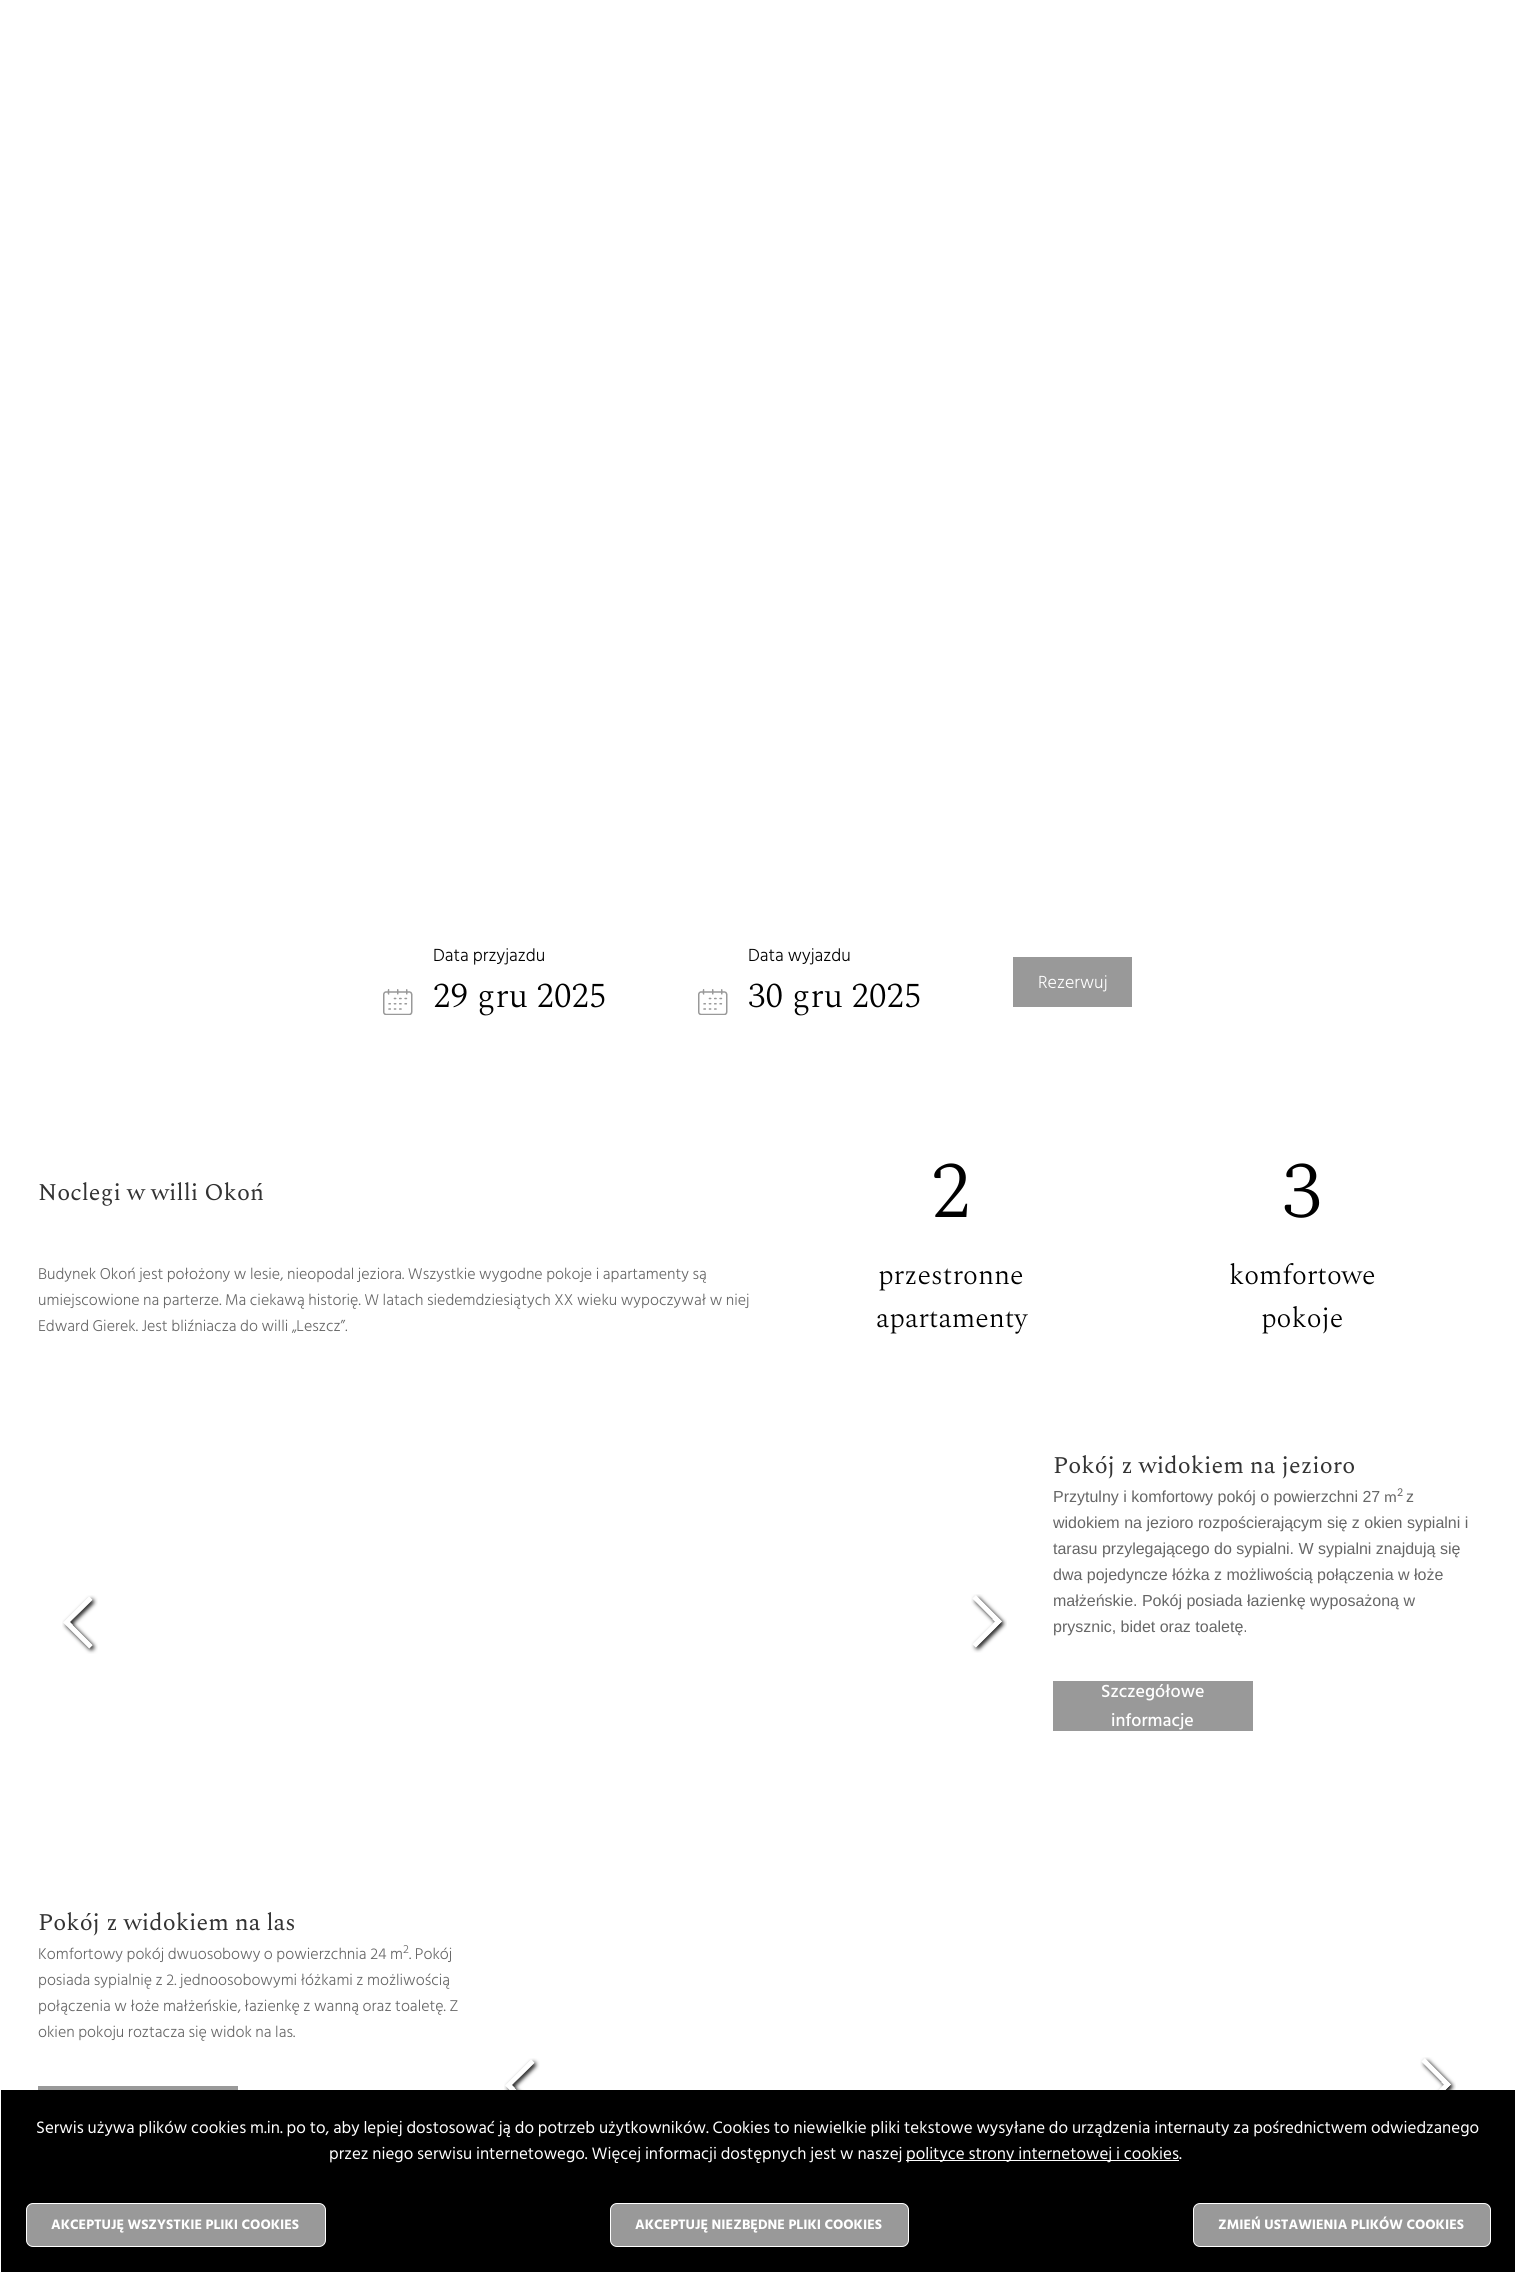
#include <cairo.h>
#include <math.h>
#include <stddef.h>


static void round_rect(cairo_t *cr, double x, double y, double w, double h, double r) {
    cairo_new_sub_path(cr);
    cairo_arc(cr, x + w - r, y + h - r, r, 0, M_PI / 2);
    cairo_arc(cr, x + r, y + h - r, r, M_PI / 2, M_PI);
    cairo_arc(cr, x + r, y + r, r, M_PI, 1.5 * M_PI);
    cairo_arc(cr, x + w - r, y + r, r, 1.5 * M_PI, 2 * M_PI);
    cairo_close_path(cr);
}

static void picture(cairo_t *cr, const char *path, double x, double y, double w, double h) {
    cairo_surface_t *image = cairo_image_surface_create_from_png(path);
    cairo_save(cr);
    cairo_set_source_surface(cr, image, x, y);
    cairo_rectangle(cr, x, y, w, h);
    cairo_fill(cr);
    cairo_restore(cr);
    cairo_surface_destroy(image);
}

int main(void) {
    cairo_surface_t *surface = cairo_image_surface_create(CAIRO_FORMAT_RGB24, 1515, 2272);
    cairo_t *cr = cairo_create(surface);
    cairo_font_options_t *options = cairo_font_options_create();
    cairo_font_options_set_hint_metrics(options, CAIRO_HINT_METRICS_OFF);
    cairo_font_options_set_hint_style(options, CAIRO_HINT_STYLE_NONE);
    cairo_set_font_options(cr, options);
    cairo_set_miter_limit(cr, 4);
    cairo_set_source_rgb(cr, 1, 1, 1);
    cairo_paint(cr);
    cairo_select_font_face(cr, "Hind Siliguri Light", CAIRO_FONT_SLANT_NORMAL, CAIRO_FONT_WEIGHT_NORMAL);
    cairo_set_font_size(cr, 18);
    cairo_set_source_rgb(cr, 0, 0, 0);
    cairo_move_to(cr, 433, 961);
    cairo_show_text(cr, "Data przyjazdu");
    picture(cr, "img1.png", 383, 989, 30, 26);
    cairo_select_font_face(cr, "Spectral Light", CAIRO_FONT_SLANT_NORMAL, CAIRO_FONT_WEIGHT_NORMAL);
    cairo_set_font_size(cr, 35);
    cairo_move_to(cr, 433, 1007);
    cairo_show_text(cr, "29 gru 2025");
    cairo_select_font_face(cr, "Hind Siliguri Light", CAIRO_FONT_SLANT_NORMAL, CAIRO_FONT_WEIGHT_NORMAL);
    cairo_set_font_size(cr, 18);
    cairo_move_to(cr, 748, 961);
    cairo_show_text(cr, "Data wyjazdu");
    picture(cr, "img1.png", 698, 989, 30, 26);
    cairo_select_font_face(cr, "Spectral Light", CAIRO_FONT_SLANT_NORMAL, CAIRO_FONT_WEIGHT_NORMAL);
    cairo_set_font_size(cr, 35);
    cairo_move_to(cr, 748, 1007);
    cairo_show_text(cr, "30 gru 2025");
    cairo_set_source_rgb(cr, 0.6, 0.6, 0.6);
    cairo_rectangle(cr, 1013, 957, 119, 50);
    cairo_fill(cr);
    cairo_select_font_face(cr, "Hind Siliguri Light", CAIRO_FONT_SLANT_NORMAL, CAIRO_FONT_WEIGHT_NORMAL);
    cairo_set_font_size(cr, 18);
    cairo_set_source_rgb(cr, 1, 1, 1);
    cairo_move_to(cr, 1038, 988);
    cairo_show_text(cr, "Rezerwuj");
    cairo_select_font_face(cr, "Spectral", CAIRO_FONT_SLANT_NORMAL, CAIRO_FONT_WEIGHT_NORMAL);
    cairo_set_font_size(cr, 24);
    cairo_set_source_rgb(cr, 0.2, 0.2, 0.2);
    cairo_move_to(cr, 38, 1200);
    cairo_show_text(cr, "Noclegi w willi Okoń");
    cairo_select_font_face(cr, "Hind Siliguri Light", CAIRO_FONT_SLANT_NORMAL, CAIRO_FONT_WEIGHT_NORMAL);
    cairo_set_font_size(cr, 16);
    cairo_set_source_rgb(cr, 0.4, 0.4, 0.4);
    cairo_move_to(cr, 38, 1279);
    cairo_show_text(cr, "Budynek Okoń jest położony w lesie, nieopodal jeziora. Wszystkie wygodne pokoje i apartamenty są");
    cairo_move_to(cr, 38, 1305);
    cairo_show_text(cr, "umiejscowione na parterze. Ma ciekawą historię. W latach siedemdziesiątych XX wieku wypoczywał w niej");
    cairo_move_to(cr, 38, 1331);
    cairo_show_text(cr, "Edward Gierek. Jest bliźniacza do willi „Leszcz”.");
    cairo_select_font_face(cr, "Spectral Light", CAIRO_FONT_SLANT_NORMAL, CAIRO_FONT_WEIGHT_NORMAL);
    cairo_set_font_size(cr, 80);
    cairo_set_source_rgb(cr, 0, 0, 0);
    cairo_move_to(cr, 931, 1217);
    cairo_show_text(cr, "2");
    cairo_set_font_size(cr, 28);
    cairo_move_to(cr, 878, 1284);
    cairo_show_text(cr, "przestronne");
    cairo_move_to(cr, 876, 1327);
    cairo_show_text(cr, "apartamenty");
    cairo_set_font_size(cr, 80);
    cairo_move_to(cr, 1282, 1217);
    cairo_show_text(cr, "3");
    cairo_set_font_size(cr, 28);
    cairo_move_to(cr, 1229, 1284);
    cairo_show_text(cr, "komfortowe");
    cairo_move_to(cr, 1261, 1327);
    cairo_show_text(cr, "pokoje");
    picture(cr, "img2.png", 62, 1595, 36, 59);
    picture(cr, "img3.png", 971, 1594, 36, 59);
    cairo_select_font_face(cr, "Spectral", CAIRO_FONT_SLANT_NORMAL, CAIRO_FONT_WEIGHT_NORMAL);
    cairo_set_font_size(cr, 24);
    cairo_set_source_rgb(cr, 0.2, 0.2, 0.2);
    cairo_move_to(cr, 1053, 1473);
    cairo_show_text(cr, "Pokój z widokiem na jezioro");
    cairo_select_font_face(cr, "Liberation Sans", CAIRO_FONT_SLANT_NORMAL, CAIRO_FONT_WEIGHT_NORMAL);
    cairo_set_font_size(cr, 16);
    cairo_set_source_rgb(cr, 0.4, 0.4, 0.4);
    cairo_move_to(cr, 1053, 1502);
    cairo_show_text(cr, "Przytulny i komfortowy pokój o powierzchni 27");
    cairo_select_font_face(cr, "Carlito", CAIRO_FONT_SLANT_NORMAL, CAIRO_FONT_WEIGHT_NORMAL);
    cairo_move_to(cr, 1384, 1502);
    cairo_show_text(cr, "m");
    cairo_set_font_size(cr, 12);
    cairo_move_to(cr, 1397, 1496);
    cairo_show_text(cr, "2");
    cairo_select_font_face(cr, "Liberation Sans", CAIRO_FONT_SLANT_NORMAL, CAIRO_FONT_WEIGHT_NORMAL);
    cairo_set_font_size(cr, 16);
    cairo_move_to(cr, 1406, 1502);
    cairo_show_text(cr, "z");
    cairo_move_to(cr, 1053, 1528);
    cairo_show_text(cr, "widokiem na jezioro rozpościerającym się z okien sypialni i");
    cairo_move_to(cr, 1053, 1554);
    cairo_show_text(cr, "tarasu przylegającego do sypialni. W sypialni znajdują się");
    cairo_move_to(cr, 1053, 1580);
    cairo_show_text(cr, "dwa pojedyncze łóżka z możliwością połączenia w łoże");
    cairo_move_to(cr, 1053, 1606);
    cairo_show_text(cr, "małżeńskie. Pokój posiada łazienkę wyposażoną w");
    cairo_move_to(cr, 1053, 1632);
    cairo_show_text(cr, "prysznic, bidet oraz toaletę.");
    cairo_set_source_rgb(cr, 0.6, 0.6, 0.6);
    cairo_rectangle(cr, 1053, 1681, 200, 50);
    cairo_fill(cr);
    cairo_select_font_face(cr, "Hind Siliguri Medium", CAIRO_FONT_SLANT_NORMAL, CAIRO_FONT_WEIGHT_NORMAL);
    cairo_set_font_size(cr, 18);
    cairo_set_source_rgb(cr, 1, 1, 1);
    cairo_move_to(cr, 1101, 1697);
    cairo_show_text(cr, "Szczegółowe");
    cairo_move_to(cr, 1111, 1726);
    cairo_show_text(cr, "informacje");
    cairo_select_font_face(cr, "Spectral", CAIRO_FONT_SLANT_NORMAL, CAIRO_FONT_WEIGHT_NORMAL);
    cairo_set_font_size(cr, 24);
    cairo_set_source_rgb(cr, 0.2, 0.2, 0.2);
    cairo_move_to(cr, 38, 1930);
    cairo_show_text(cr, "Pokój z widokiem na las");
    cairo_select_font_face(cr, "Hind Siliguri Light", CAIRO_FONT_SLANT_NORMAL, CAIRO_FONT_WEIGHT_NORMAL);
    cairo_set_font_size(cr, 16);
    cairo_set_source_rgb(cr, 0.4, 0.4, 0.4);
    cairo_move_to(cr, 38, 1959);
    cairo_show_text(cr, "Komfortowy pokój dwuosobowy o powierzchnia 24 m");
    cairo_set_font_size(cr, 12);
    cairo_move_to(cr, 403, 1953);
    cairo_show_text(cr, "2");
    cairo_set_font_size(cr, 16);
    cairo_move_to(cr, 409, 1959);
    cairo_show_text(cr, ". Pokój");
    cairo_move_to(cr, 38, 1985);
    cairo_show_text(cr, "posiada sypialnię z 2. jednoosobowymi łóżkami z możliwością");
    cairo_move_to(cr, 38, 2011);
    cairo_show_text(cr, "połączenia w łoże małżeńskie, łazienkę z wanną oraz toaletę. Z");
    cairo_move_to(cr, 38, 2037);
    cairo_show_text(cr, "okien pokoju roztacza się widok na las.");
    cairo_set_source_rgb(cr, 0.6, 0.6, 0.6);
    cairo_rectangle(cr, 38, 2086, 200, 4);
    cairo_fill(cr);
    picture(cr, "img4.png", 504, 2058, 36, 32);
    picture(cr, "img5.png", 1420, 2057, 36, 33);
    cairo_set_source_rgb(cr, 0, 0, 0);
    cairo_rectangle(cr, 1, 2090, 1514, 182);
    cairo_fill(cr);
    cairo_select_font_face(cr, "Hind Siliguri", CAIRO_FONT_SLANT_NORMAL, CAIRO_FONT_WEIGHT_NORMAL);
    cairo_set_font_size(cr, 17);
    cairo_set_source_rgb(cr, 1, 1, 1);
    cairo_move_to(cr, 36, 2133);
    cairo_show_text(cr, "Serwis używa plików cookies m.in. po to, aby lepiej dostosować ją do potrzeb użytkowników. Cookies to niewielkie pliki tekstowe wysyłane do urządzenia internauty za pośrednictwem odwiedzanego");
    cairo_move_to(cr, 329, 2159);
    cairo_show_text(cr, "przez niego serwisu internetowego. Więcej informacji dostępnych jest w naszej");
    cairo_rectangle(cr, 906, 2160, 273, 1);
    cairo_fill(cr);
    cairo_move_to(cr, 906, 2159);
    cairo_show_text(cr, "polityce strony internetowej i cookies.");
    cairo_set_source_rgb(cr, 0.6, 0.6, 0.6);
    round_rect(cr, 26.5, 2203.5, 299, 43, 6.5);
    cairo_fill_preserve(cr);
    cairo_set_source_rgb(cr, 1, 1, 1);
    cairo_set_line_width(cr, 1);
    cairo_stroke(cr);
    cairo_select_font_face(cr, "Hind Siliguri", CAIRO_FONT_SLANT_NORMAL, CAIRO_FONT_WEIGHT_BOLD);
    cairo_set_font_size(cr, 14);
    cairo_move_to(cr, 51, 2229);
    cairo_show_text(cr, "AKCEPTUJĘ WSZYSTKIE PLIKI COOKIES");
    cairo_set_source_rgb(cr, 0.6, 0.6, 0.6);
    round_rect(cr, 610.5, 2203.5, 298, 43, 6.5);
    cairo_fill_preserve(cr);
    cairo_set_source_rgb(cr, 1, 1, 1);
    cairo_stroke(cr);
    cairo_move_to(cr, 635, 2229);
    cairo_show_text(cr, "AKCEPTUJĘ NIEZBĘDNE PLIKI COOKIES");
    cairo_set_source_rgb(cr, 0.6, 0.6, 0.6);
    round_rect(cr, 1193.5, 2203.5, 297, 43, 6.5);
    cairo_fill_preserve(cr);
    cairo_set_source_rgb(cr, 1, 1, 1);
    cairo_stroke(cr);
    cairo_move_to(cr, 1218, 2229);
    cairo_show_text(cr, "ZMIEŃ USTAWIENIA PLIKÓW COOKIES");
    cairo_surface_write_to_png(surface, "page.png");
    cairo_font_options_destroy(options);
    cairo_destroy(cr);
    cairo_surface_destroy(surface);
    return 0;
}
